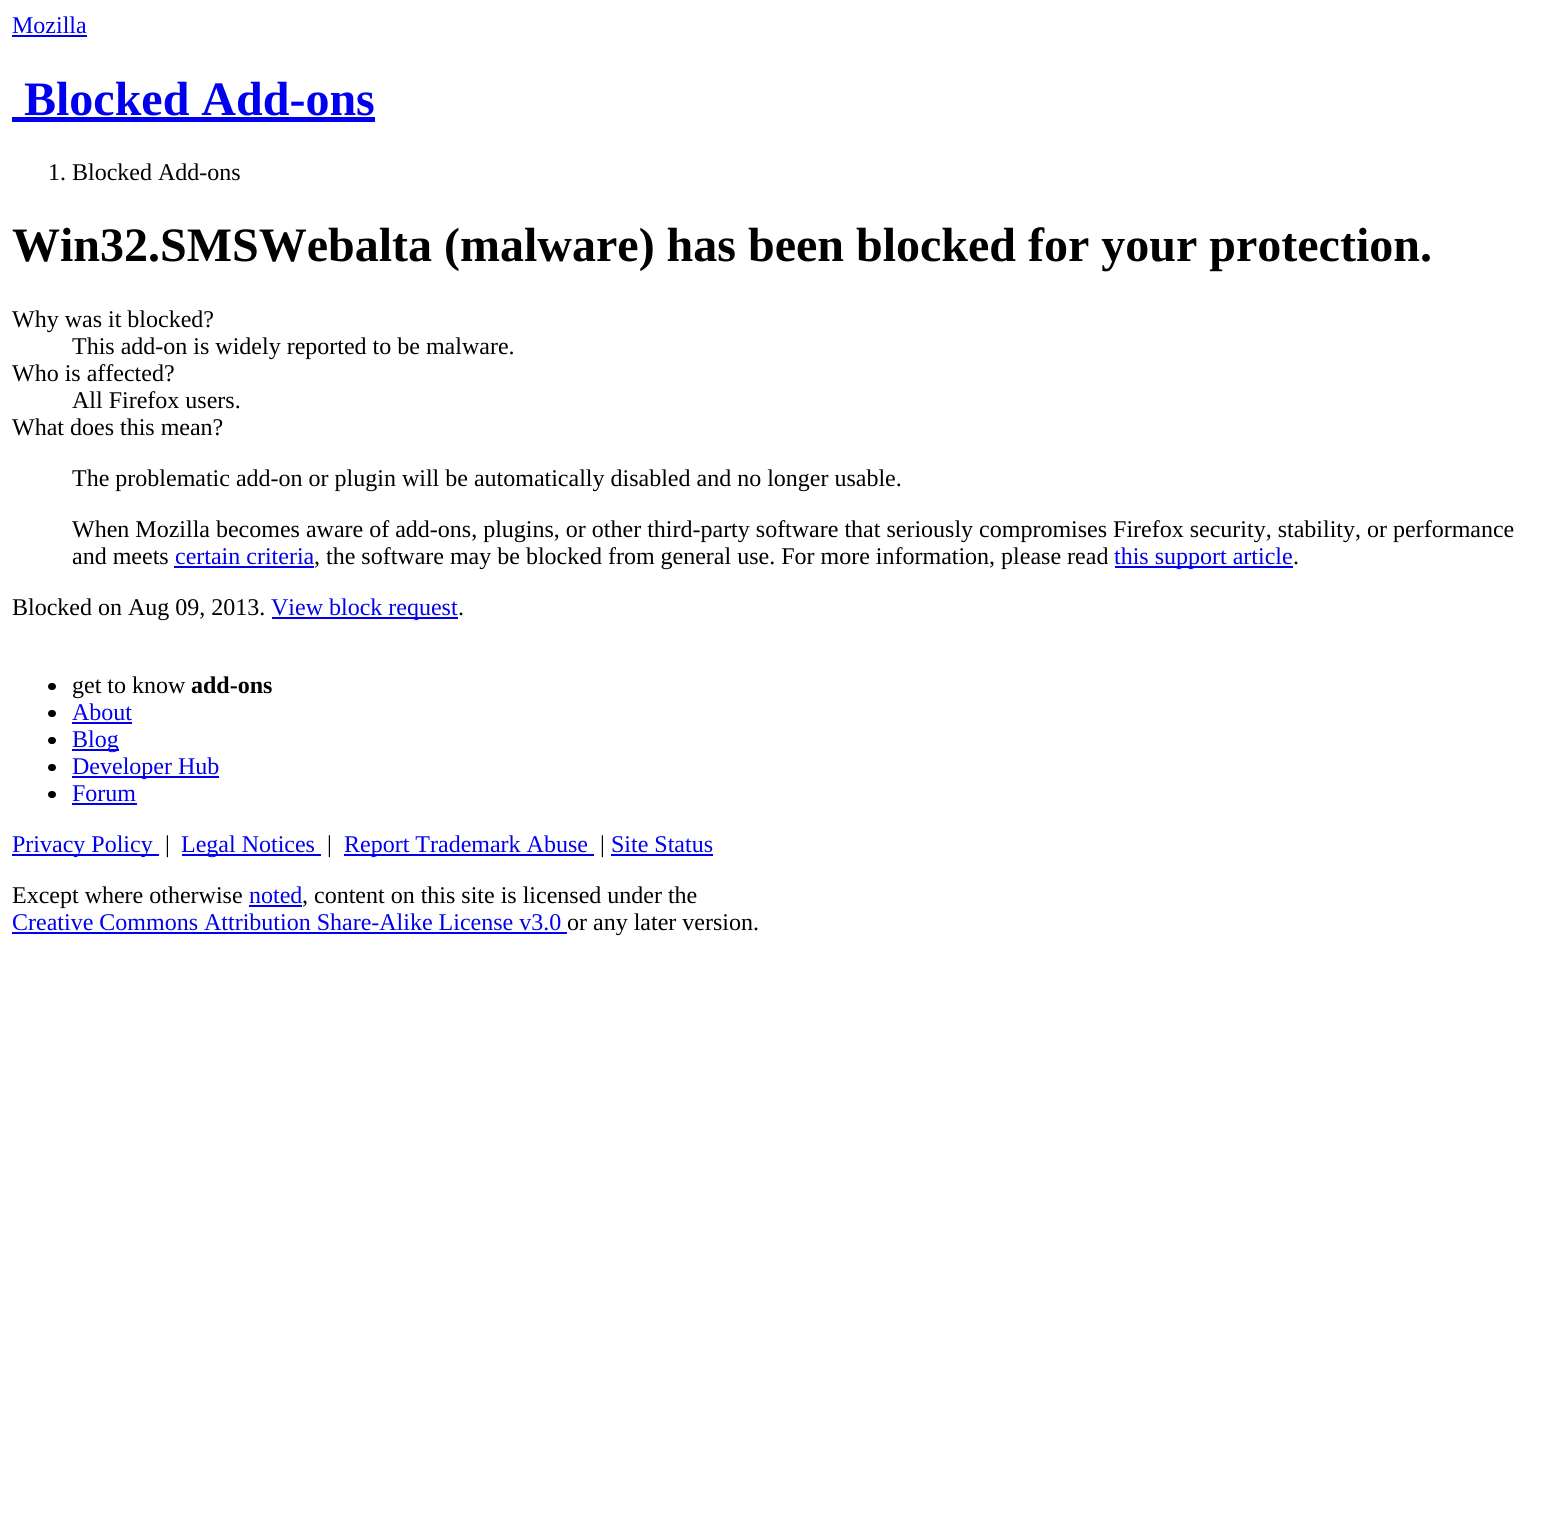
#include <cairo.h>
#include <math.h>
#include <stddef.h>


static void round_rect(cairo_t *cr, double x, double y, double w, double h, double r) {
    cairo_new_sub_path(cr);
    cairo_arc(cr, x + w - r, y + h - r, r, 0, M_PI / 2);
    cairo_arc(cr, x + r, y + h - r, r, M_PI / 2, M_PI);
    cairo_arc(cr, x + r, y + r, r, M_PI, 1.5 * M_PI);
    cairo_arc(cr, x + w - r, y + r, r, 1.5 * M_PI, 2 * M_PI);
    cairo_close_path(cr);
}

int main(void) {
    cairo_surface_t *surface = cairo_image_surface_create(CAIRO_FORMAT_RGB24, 1546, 1513);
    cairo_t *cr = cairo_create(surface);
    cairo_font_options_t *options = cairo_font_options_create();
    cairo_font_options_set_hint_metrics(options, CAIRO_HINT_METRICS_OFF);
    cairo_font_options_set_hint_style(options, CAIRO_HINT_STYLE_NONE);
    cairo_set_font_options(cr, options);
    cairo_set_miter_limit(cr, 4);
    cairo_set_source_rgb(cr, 1, 1, 1);
    cairo_paint(cr);
    cairo_select_font_face(cr, "Liberation Serif", CAIRO_FONT_SLANT_NORMAL, CAIRO_FONT_WEIGHT_NORMAL);
    cairo_set_font_size(cr, 24);
    cairo_set_source_rgb(cr, 0, 0, 0.933);
    cairo_move_to(cr, 12, 33);
    cairo_show_text(cr, "Mozilla");
    cairo_rectangle(cr, 12, 35, 75, 2);
    cairo_fill(cr);
    cairo_select_font_face(cr, "Liberation Serif", CAIRO_FONT_SLANT_NORMAL, CAIRO_FONT_WEIGHT_BOLD);
    cairo_set_font_size(cr, 48);
    cairo_move_to(cr, 24, 115);
    cairo_show_text(cr, "Blocked Add-ons");
    cairo_rectangle(cr, 12, 117, 363, 5);
    cairo_fill(cr);
    cairo_select_font_face(cr, "Liberation Serif", CAIRO_FONT_SLANT_NORMAL, CAIRO_FONT_WEIGHT_NORMAL);
    cairo_set_font_size(cr, 24);
    cairo_set_source_rgb(cr, 0, 0, 0);
    cairo_move_to(cr, 48, 180);
    cairo_show_text(cr, "1. Blocked Add-ons");
    cairo_select_font_face(cr, "Liberation Serif", CAIRO_FONT_SLANT_NORMAL, CAIRO_FONT_WEIGHT_BOLD);
    cairo_set_font_size(cr, 48);
    cairo_move_to(cr, 12, 261);
    cairo_show_text(cr, "Win32.SMSWebalta (malware) has been blocked for your protection.");
    cairo_select_font_face(cr, "Liberation Serif", CAIRO_FONT_SLANT_NORMAL, CAIRO_FONT_WEIGHT_NORMAL);
    cairo_set_font_size(cr, 24);
    cairo_move_to(cr, 12, 327);
    cairo_show_text(cr, "Why was it blocked?");
    cairo_move_to(cr, 72, 354);
    cairo_show_text(cr, "This add-on is widely reported to be malware.");
    cairo_move_to(cr, 12, 381);
    cairo_show_text(cr, "Who is affected?");
    cairo_move_to(cr, 72, 408);
    cairo_show_text(cr, "All Firefox users.");
    cairo_move_to(cr, 12, 435);
    cairo_show_text(cr, "What does this mean?");
    cairo_move_to(cr, 72, 486);
    cairo_show_text(cr, "The problematic add-on or plugin will be automatically disabled and no longer usable.");
    cairo_move_to(cr, 72, 537);
    cairo_show_text(cr, "When Mozilla becomes aware of add-ons, plugins, or other third-party software that seriously compromises Firefox security, stability, or performance");
    cairo_move_to(cr, 72, 564);
    cairo_show_text(cr, "and meets");
    cairo_set_source_rgb(cr, 0, 0, 0.933);
    cairo_move_to(cr, 175, 564);
    cairo_show_text(cr, "certain criteria");
    cairo_rectangle(cr, 174, 566, 140, 2);
    cairo_fill(cr);
    cairo_set_source_rgb(cr, 0, 0, 0);
    cairo_move_to(cr, 314, 564);
    cairo_show_text(cr, ", the software may be blocked from general use. For more information, please read");
    cairo_set_source_rgb(cr, 0, 0, 0.933);
    cairo_rectangle(cr, 1115, 566, 178, 2);
    cairo_fill(cr);
    cairo_move_to(cr, 1114, 564);
    cairo_show_text(cr, "this support article");
    cairo_set_source_rgb(cr, 0, 0, 0);
    cairo_move_to(cr, 1293, 564);
    cairo_show_text(cr, ".");
    cairo_move_to(cr, 12, 615);
    cairo_show_text(cr, "Blocked on Aug 09, 2013.");
    cairo_set_source_rgb(cr, 0, 0, 0.933);
    cairo_rectangle(cr, 272, 617, 186, 2);
    cairo_fill(cr);
    cairo_move_to(cr, 271, 615);
    cairo_show_text(cr, "View block request");
    cairo_set_source_rgb(cr, 0, 0, 0);
    cairo_move_to(cr, 458, 615);
    cairo_show_text(cr, ".");
    round_rect(cr, 48, 683, 8, 7, 3.5);
    cairo_fill(cr);
    cairo_move_to(cr, 72, 693);
    cairo_show_text(cr, "get to know");
    cairo_select_font_face(cr, "Liberation Serif", CAIRO_FONT_SLANT_NORMAL, CAIRO_FONT_WEIGHT_BOLD);
    cairo_move_to(cr, 191, 693);
    cairo_show_text(cr, "add-ons");
    round_rect(cr, 48, 710, 8, 7, 3.5);
    cairo_fill(cr);
    cairo_select_font_face(cr, "Liberation Serif", CAIRO_FONT_SLANT_NORMAL, CAIRO_FONT_WEIGHT_NORMAL);
    cairo_set_source_rgb(cr, 0, 0, 0.933);
    cairo_move_to(cr, 72, 720);
    cairo_show_text(cr, "About");
    cairo_rectangle(cr, 72, 722, 60, 2);
    cairo_fill(cr);
    cairo_set_source_rgb(cr, 0, 0, 0);
    round_rect(cr, 48, 737, 8, 7, 3.5);
    cairo_fill(cr);
    cairo_set_source_rgb(cr, 0, 0, 0.933);
    cairo_rectangle(cr, 72, 749, 47, 2);
    cairo_fill(cr);
    cairo_move_to(cr, 72, 747);
    cairo_show_text(cr, "Blog");
    cairo_set_source_rgb(cr, 0, 0, 0);
    round_rect(cr, 48, 764, 8, 7, 3.5);
    cairo_fill(cr);
    cairo_set_source_rgb(cr, 0, 0, 0.933);
    cairo_rectangle(cr, 72, 776, 147, 2);
    cairo_fill(cr);
    cairo_move_to(cr, 72, 774);
    cairo_show_text(cr, "Developer Hub");
    cairo_set_source_rgb(cr, 0, 0, 0);
    round_rect(cr, 48, 791, 8, 7, 3.5);
    cairo_fill(cr);
    cairo_set_source_rgb(cr, 0, 0, 0.933);
    cairo_move_to(cr, 72, 801);
    cairo_show_text(cr, "Forum");
    cairo_rectangle(cr, 72, 803, 65, 2);
    cairo_fill(cr);
    cairo_rectangle(cr, 12, 854, 147, 2);
    cairo_fill(cr);
    cairo_move_to(cr, 12, 852);
    cairo_show_text(cr, "Privacy Policy");
    cairo_set_source_rgb(cr, 0, 0, 0);
    cairo_move_to(cr, 165, 852);
    cairo_show_text(cr, "|");
    cairo_set_source_rgb(cr, 0, 0, 0.933);
    cairo_rectangle(cr, 182, 854, 139, 2);
    cairo_fill(cr);
    cairo_move_to(cr, 181, 852);
    cairo_show_text(cr, "Legal Notices");
    cairo_set_source_rgb(cr, 0, 0, 0);
    cairo_move_to(cr, 327, 852);
    cairo_show_text(cr, "|");
    cairo_set_source_rgb(cr, 0, 0, 0.933);
    cairo_rectangle(cr, 344, 854, 250, 2);
    cairo_fill(cr);
    cairo_move_to(cr, 344, 852);
    cairo_show_text(cr, "Report Trademark Abuse");
    cairo_set_source_rgb(cr, 0, 0, 0);
    cairo_move_to(cr, 600, 852);
    cairo_show_text(cr, "|");
    cairo_set_source_rgb(cr, 0, 0, 0.933);
    cairo_move_to(cr, 611, 852);
    cairo_show_text(cr, "Site Status");
    cairo_rectangle(cr, 611, 854, 102, 2);
    cairo_fill(cr);
    cairo_set_source_rgb(cr, 0, 0, 0);
    cairo_move_to(cr, 12, 903);
    cairo_show_text(cr, "Except where otherwise");
    cairo_set_source_rgb(cr, 0, 0, 0.933);
    cairo_move_to(cr, 249, 903);
    cairo_show_text(cr, "noted");
    cairo_rectangle(cr, 249, 905, 53, 2);
    cairo_fill(cr);
    cairo_set_source_rgb(cr, 0, 0, 0);
    cairo_move_to(cr, 302, 903);
    cairo_show_text(cr, ", content on this site is licensed under the");
    cairo_set_source_rgb(cr, 0, 0, 0.933);
    cairo_move_to(cr, 12, 930);
    cairo_show_text(cr, "Creative Commons Attribution Share-Alike License v3.0");
    cairo_rectangle(cr, 12, 932, 555, 2);
    cairo_fill(cr);
    cairo_set_source_rgb(cr, 0, 0, 0);
    cairo_move_to(cr, 567, 930);
    cairo_show_text(cr, "or any later version.");
    cairo_surface_write_to_png(surface, "page.png");
    cairo_font_options_destroy(options);
    cairo_destroy(cr);
    cairo_surface_destroy(surface);
    return 0;
}
